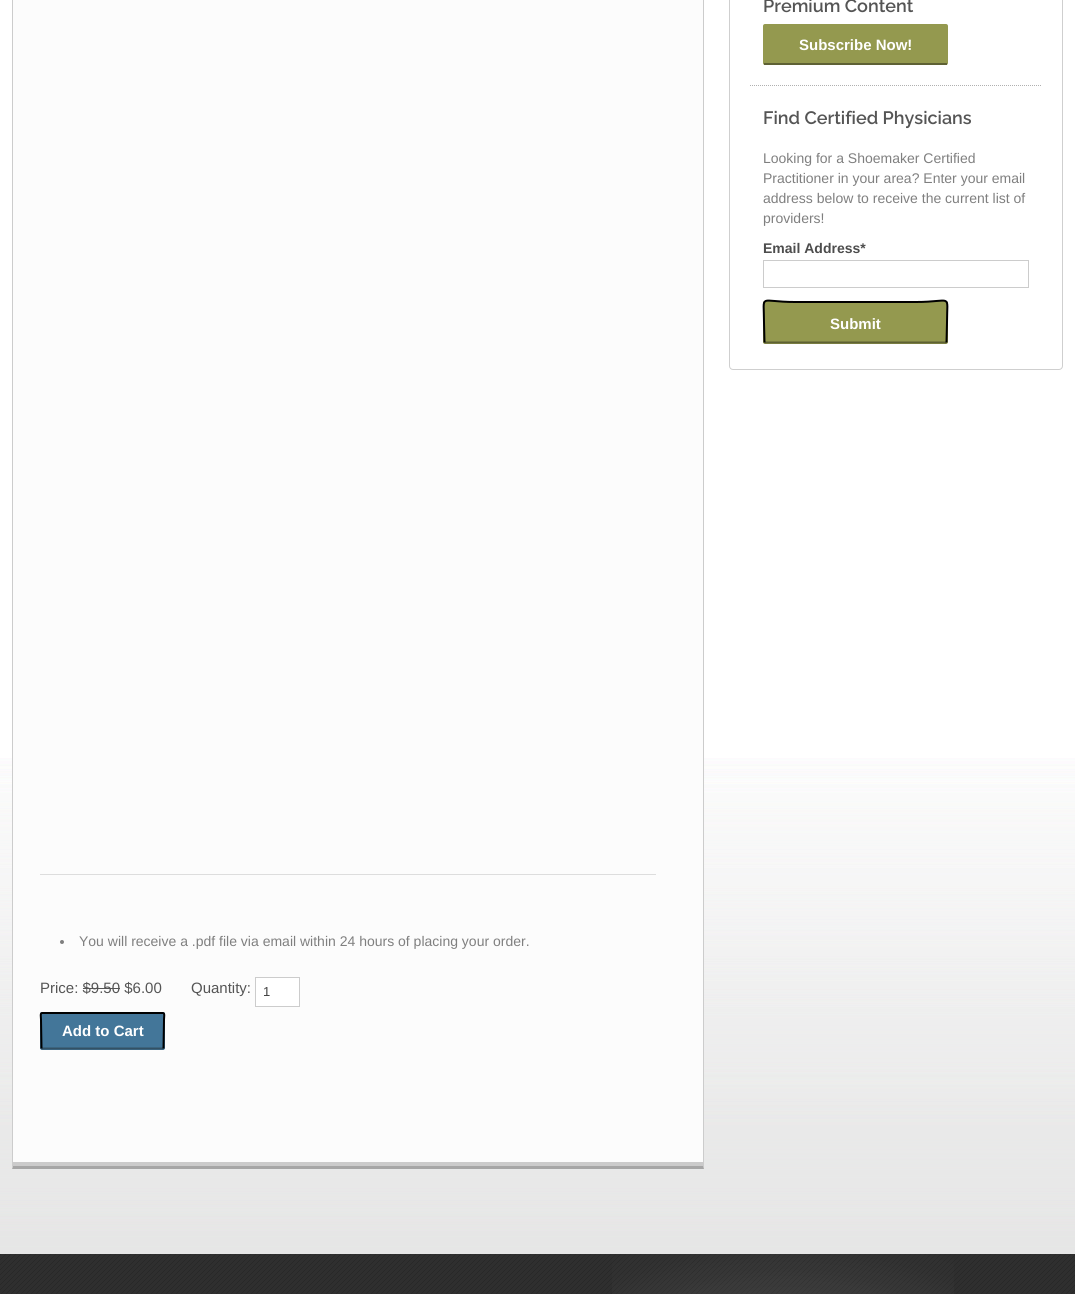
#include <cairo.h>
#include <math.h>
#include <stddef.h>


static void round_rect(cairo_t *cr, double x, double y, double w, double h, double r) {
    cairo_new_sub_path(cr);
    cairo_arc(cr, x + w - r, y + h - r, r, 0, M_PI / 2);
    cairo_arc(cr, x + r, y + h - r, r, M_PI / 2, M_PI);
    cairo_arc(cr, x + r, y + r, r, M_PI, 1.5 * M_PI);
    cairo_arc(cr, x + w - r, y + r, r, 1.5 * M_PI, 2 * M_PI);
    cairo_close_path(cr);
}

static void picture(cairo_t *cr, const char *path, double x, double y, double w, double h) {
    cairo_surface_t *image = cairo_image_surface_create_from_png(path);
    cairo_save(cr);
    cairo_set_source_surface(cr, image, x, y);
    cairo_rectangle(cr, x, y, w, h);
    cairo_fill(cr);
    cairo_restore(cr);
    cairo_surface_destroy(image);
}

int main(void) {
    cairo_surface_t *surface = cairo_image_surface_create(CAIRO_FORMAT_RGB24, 1075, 1294);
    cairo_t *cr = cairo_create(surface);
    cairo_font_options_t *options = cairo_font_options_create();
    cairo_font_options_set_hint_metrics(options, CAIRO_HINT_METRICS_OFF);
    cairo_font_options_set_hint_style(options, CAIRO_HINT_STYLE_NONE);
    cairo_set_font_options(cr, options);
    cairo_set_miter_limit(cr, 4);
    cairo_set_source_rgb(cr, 1, 1, 1);
    cairo_paint(cr);
    picture(cr, "img1.png", 0, 758, 1075, 496);
    round_rect(cr, 729.5, -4.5, 333, 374, 3.5);
    cairo_set_source_rgb(cr, 0.812, 0.812, 0.812);
    cairo_set_line_width(cr, 1);
    cairo_stroke(cr);
    cairo_select_font_face(cr, "Raleway SemiBold", CAIRO_FONT_SLANT_NORMAL, CAIRO_FONT_WEIGHT_NORMAL);
    cairo_set_font_size(cr, 18);
    cairo_set_source_rgb(cr, 0.333, 0.333, 0.333);
    cairo_move_to(cr, 763, 12);
    cairo_show_text(cr, "Premium Content");
    cairo_set_source_rgb(cr, 0.58, 0.6, 0.31);
    round_rect(cr, 763, 24, 185, 41, 2);
    cairo_fill(cr);
    cairo_set_source_rgb(cr, 0.369, 0.38, 0.204);
    cairo_rectangle(cr, 764, 63, 183, 2);
    cairo_fill(cr);
    cairo_select_font_face(cr, "Liberation Sans", CAIRO_FONT_SLANT_NORMAL, CAIRO_FONT_WEIGHT_BOLD);
    cairo_set_font_size(cr, 15);
    cairo_set_source_rgb(cr, 1, 1, 1);
    cairo_move_to(cr, 799, 50);
    cairo_show_text(cr, "Subscribe Now!");
    cairo_new_path(cr);
    cairo_move_to(cr, 750, 85.5);
    cairo_line_to(cr, 1042, 85.5);
    cairo_set_source_rgb(cr, 0.69, 0.69, 0.69);
    cairo_set_dash(cr, (double[]){1, 1}, 2, 0);
    cairo_stroke(cr);
    cairo_select_font_face(cr, "Raleway SemiBold", CAIRO_FONT_SLANT_NORMAL, CAIRO_FONT_WEIGHT_NORMAL);
    cairo_set_font_size(cr, 18);
    cairo_set_source_rgb(cr, 0.333, 0.333, 0.333);
    cairo_move_to(cr, 763, 124);
    cairo_show_text(cr, "Find Certified Physicians");
    cairo_select_font_face(cr, "Liberation Sans", CAIRO_FONT_SLANT_NORMAL, CAIRO_FONT_WEIGHT_NORMAL);
    cairo_set_font_size(cr, 14);
    cairo_set_source_rgb(cr, 0.498, 0.498, 0.498);
    cairo_move_to(cr, 763, 163);
    cairo_show_text(cr, "Looking for a Shoemaker Certified");
    cairo_move_to(cr, 763, 183);
    cairo_show_text(cr, "Practitioner in your area? Enter your email");
    cairo_move_to(cr, 763, 203);
    cairo_show_text(cr, "address below to receive the current list of");
    cairo_move_to(cr, 763, 223);
    cairo_show_text(cr, "providers!");
    cairo_select_font_face(cr, "Liberation Sans", CAIRO_FONT_SLANT_NORMAL, CAIRO_FONT_WEIGHT_BOLD);
    cairo_set_source_rgb(cr, 0.302, 0.302, 0.302);
    cairo_move_to(cr, 763, 253);
    cairo_show_text(cr, "Email Address*");
    cairo_rectangle(cr, 763.5, 260.5, 265, 27);
    cairo_set_source_rgb(cr, 0.8, 0.8, 0.8);
    cairo_set_dash(cr, NULL, 0, 0);
    cairo_stroke(cr);
    cairo_set_source_rgb(cr, 0.58, 0.6, 0.31);
    round_rect(cr, 763, 301, 185, 43, 2);
    cairo_fill(cr);
    cairo_new_path(cr);
    cairo_move_to(cr, 946.5, 342.5);
    cairo_line_to(cr, 764.5, 342.5);
    cairo_set_source_rgb(cr, 0.369, 0.38, 0.204);
    cairo_set_line_width(cr, 2);
    cairo_stroke(cr);
    cairo_new_path(cr);
    cairo_move_to(cr, 764.5, 342.5);
    cairo_line_to(cr, 764, 322.5);
    cairo_curve_to(cr, 764, 292.5, 758, 302, 795, 302);
    cairo_line_to(cr, 916, 302);
    cairo_curve_to(cr, 953, 302, 947, 292.5, 947, 322.5);
    cairo_line_to(cr, 946.5, 342.5);
    cairo_set_source_rgb(cr, 0, 0, 0);
    cairo_stroke(cr);
    cairo_set_font_size(cr, 15);
    cairo_set_source_rgb(cr, 1, 1, 1);
    cairo_move_to(cr, 830, 329);
    cairo_show_text(cr, "Submit");
    cairo_set_source_rgb(cr, 0.988, 0.988, 0.988);
    cairo_rectangle(cr, 13, 0, 690, 1162);
    cairo_fill(cr);
    cairo_set_source_rgb(cr, 0.8, 0.8, 0.8);
    cairo_new_path(cr);
    cairo_move_to(cr, 704, -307);
    cairo_line_to(cr, 704, 1169);
    cairo_line_to(cr, 703, 1166);
    cairo_line_to(cr, 703, -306);
    cairo_close_path(cr);
    cairo_fill(cr);
    cairo_set_source_rgb(cr, 0.651, 0.651, 0.651);
    cairo_new_path(cr);
    cairo_move_to(cr, 704, 1169);
    cairo_line_to(cr, 12, 1169);
    cairo_line_to(cr, 13, 1166);
    cairo_line_to(cr, 703, 1166);
    cairo_close_path(cr);
    cairo_fill(cr);
    cairo_set_source_rgb(cr, 0.8, 0.8, 0.8);
    cairo_new_path(cr);
    cairo_move_to(cr, 12, 1169);
    cairo_line_to(cr, 12, -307);
    cairo_line_to(cr, 13, -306);
    cairo_line_to(cr, 13, 1166);
    cairo_close_path(cr);
    cairo_fill(cr);
    cairo_set_source_rgb(cr, 0.796, 0.796, 0.796);
    cairo_rectangle(cr, 13, 1162, 690, 4);
    cairo_fill(cr);
    cairo_set_source_rgb(cr, 0.867, 0.867, 0.867);
    cairo_rectangle(cr, 40, 874, 616, 1);
    cairo_fill(cr);
    cairo_set_source_rgb(cr, 0.498, 0.498, 0.498);
    cairo_arc(cr, 62, 942, 2, 0, 2 * M_PI);
    cairo_fill(cr);
    cairo_select_font_face(cr, "Liberation Sans", CAIRO_FONT_SLANT_NORMAL, CAIRO_FONT_WEIGHT_NORMAL);
    cairo_set_font_size(cr, 14);
    cairo_move_to(cr, 79, 946);
    cairo_show_text(cr, "You will receive a .pdf file via email within 24 hours of placing your order.");
    cairo_set_font_size(cr, 15);
    cairo_set_source_rgb(cr, 0.333, 0.333, 0.333);
    cairo_move_to(cr, 40, 993);
    cairo_show_text(cr, "Price: $9.50 $6.00");
    cairo_move_to(cr, 191, 993);
    cairo_show_text(cr, "Quantity:");
    cairo_set_source_rgb(cr, 1, 1, 1);
    cairo_rectangle(cr, 255.5, 977.5, 44, 29);
    cairo_fill_preserve(cr);
    cairo_set_source_rgb(cr, 0.8, 0.8, 0.8);
    cairo_set_line_width(cr, 1);
    cairo_stroke(cr);
    cairo_set_font_size(cr, 13);
    cairo_set_source_rgb(cr, 0.251, 0.251, 0.251);
    cairo_move_to(cr, 263, 996);
    cairo_show_text(cr, "1");
    cairo_set_source_rgb(cr, 0.333, 0.333, 0.333);
    cairo_rectangle(cr, 83, 988, 37, 1);
    cairo_fill(cr);
    cairo_set_source_rgb(cr, 0.263, 0.463, 0.6);
    round_rect(cr, 40, 1012, 125, 38, 2);
    cairo_fill(cr);
    cairo_new_path(cr);
    cairo_move_to(cr, 163.5, 1048.5);
    cairo_line_to(cr, 41.5, 1048.5);
    cairo_set_source_rgb(cr, 0.2, 0.318, 0.396);
    cairo_set_line_width(cr, 2);
    cairo_stroke(cr);
    cairo_new_path(cr);
    cairo_move_to(cr, 41.5, 1048.5);
    cairo_line_to(cr, 41, 1019.5);
    cairo_curve_to(cr, 41, 1017.5, 40, 1013, 42, 1013);
    cairo_line_to(cr, 163, 1013);
    cairo_curve_to(cr, 165, 1013, 164, 1017.5, 164, 1019.5);
    cairo_line_to(cr, 163.5, 1048.5);
    cairo_set_source_rgb(cr, 0, 0, 0);
    cairo_stroke(cr);
    cairo_select_font_face(cr, "Liberation Sans", CAIRO_FONT_SLANT_NORMAL, CAIRO_FONT_WEIGHT_BOLD);
    cairo_set_font_size(cr, 15);
    cairo_set_source_rgb(cr, 1, 1, 1);
    cairo_move_to(cr, 62, 1036);
    cairo_show_text(cr, "Add to Cart");
    picture(cr, "img2.png", 0, 1254, 1075, 40);
    picture(cr, "img3.png", 612, 1254, 342, 40);
    cairo_surface_write_to_png(surface, "page.png");
    cairo_font_options_destroy(options);
    cairo_destroy(cr);
    cairo_surface_destroy(surface);
    return 0;
}
